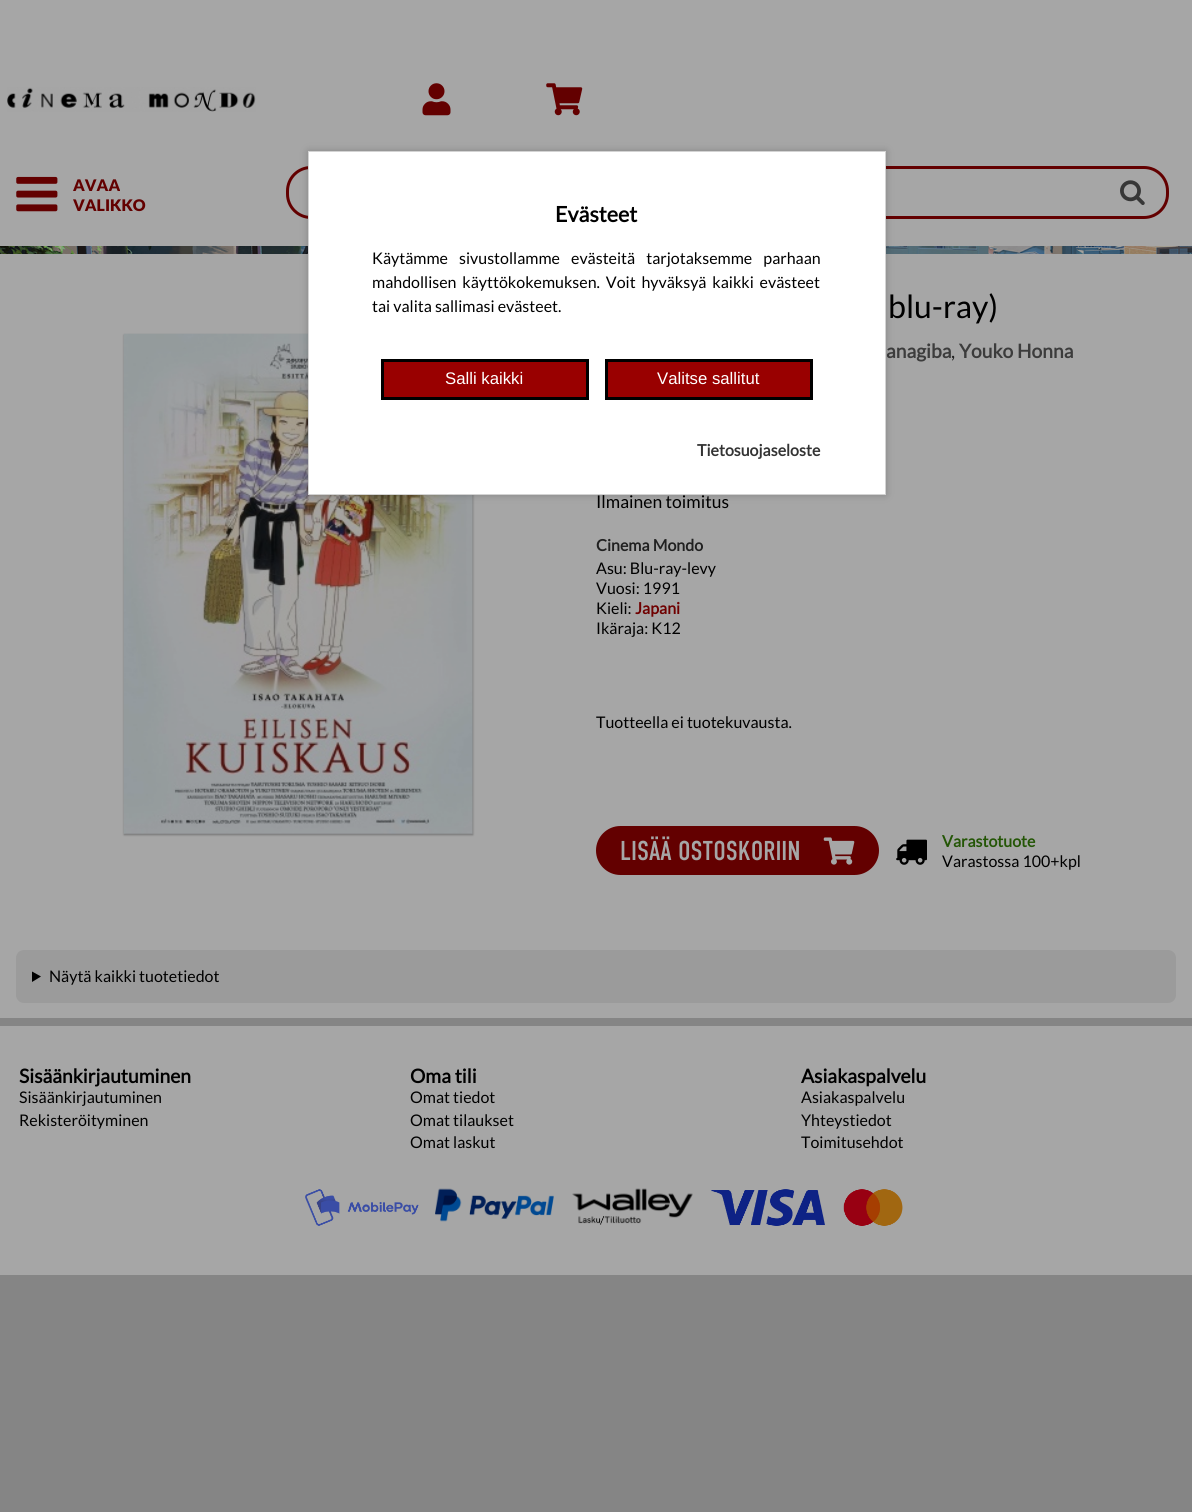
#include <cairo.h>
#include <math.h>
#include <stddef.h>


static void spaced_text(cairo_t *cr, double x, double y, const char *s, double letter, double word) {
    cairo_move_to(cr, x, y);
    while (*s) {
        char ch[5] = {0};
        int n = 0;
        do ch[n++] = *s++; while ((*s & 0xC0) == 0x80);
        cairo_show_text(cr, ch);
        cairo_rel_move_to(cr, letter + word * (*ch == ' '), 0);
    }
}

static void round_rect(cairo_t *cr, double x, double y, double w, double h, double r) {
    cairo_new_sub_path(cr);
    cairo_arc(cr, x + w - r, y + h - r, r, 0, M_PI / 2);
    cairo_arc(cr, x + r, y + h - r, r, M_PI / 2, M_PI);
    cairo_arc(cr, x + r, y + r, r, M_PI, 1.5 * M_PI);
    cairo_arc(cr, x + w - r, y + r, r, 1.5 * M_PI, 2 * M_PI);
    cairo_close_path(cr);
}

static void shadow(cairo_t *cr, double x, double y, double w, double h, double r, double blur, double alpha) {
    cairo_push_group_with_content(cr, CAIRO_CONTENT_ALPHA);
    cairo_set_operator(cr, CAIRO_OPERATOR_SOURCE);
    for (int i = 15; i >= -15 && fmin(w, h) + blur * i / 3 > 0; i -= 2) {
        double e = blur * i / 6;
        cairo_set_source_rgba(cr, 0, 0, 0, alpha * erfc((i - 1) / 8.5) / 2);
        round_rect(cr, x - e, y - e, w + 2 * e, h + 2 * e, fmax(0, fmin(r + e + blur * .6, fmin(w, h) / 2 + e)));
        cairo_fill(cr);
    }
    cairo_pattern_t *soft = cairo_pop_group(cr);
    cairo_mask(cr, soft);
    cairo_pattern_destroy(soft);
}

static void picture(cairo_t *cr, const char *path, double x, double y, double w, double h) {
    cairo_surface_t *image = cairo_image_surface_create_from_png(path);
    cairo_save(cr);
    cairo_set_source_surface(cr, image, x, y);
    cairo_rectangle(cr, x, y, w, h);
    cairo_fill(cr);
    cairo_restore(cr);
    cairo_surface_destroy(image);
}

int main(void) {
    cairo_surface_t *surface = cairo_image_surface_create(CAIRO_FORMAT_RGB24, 1192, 1512);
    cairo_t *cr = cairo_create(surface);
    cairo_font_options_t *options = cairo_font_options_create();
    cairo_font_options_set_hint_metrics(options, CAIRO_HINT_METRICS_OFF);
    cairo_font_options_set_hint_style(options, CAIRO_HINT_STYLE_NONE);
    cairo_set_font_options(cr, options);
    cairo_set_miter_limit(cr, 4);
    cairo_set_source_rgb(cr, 0.522, 0.522, 0.522);
    cairo_paint(cr);
    picture(cr, "img1.png", 0, 246, 1192, 8);
    cairo_set_source_rgb(cr, 0.651, 0.651, 0.651);
    cairo_rectangle(cr, 0, 0, 1192, 159);
    cairo_fill(cr);
    picture(cr, "img2.png", 7, 87, 249, 25);
    picture(cr, "img3.png", 422, 83, 29, 33);
    picture(cr, "img4.png", 546, 83, 37, 33);
    cairo_rectangle(cr, 0, 159, 1192, 87);
    cairo_fill(cr);
    picture(cr, "img5.png", 16, 176, 42, 36);
    cairo_select_font_face(cr, "Lato Black", CAIRO_FONT_SLANT_NORMAL, CAIRO_FONT_WEIGHT_NORMAL);
    cairo_set_font_size(cr, 16);
    cairo_set_source_rgb(cr, 0.388, 0, 0);
    cairo_move_to(cr, 73, 191);
    cairo_show_text(cr, "AVAA");
    cairo_move_to(cr, 73, 211);
    cairo_show_text(cr, "VALIKKO");
    round_rect(cr, 287.5, 167.5, 880, 50, 23.5);
    cairo_set_line_width(cr, 3);
    cairo_stroke(cr);
    picture(cr, "img6.png", 1120, 180, 25, 25);
    cairo_set_source_rgb(cr, 0.651, 0.651, 0.651);
    cairo_rectangle(cr, 0, 254, 1192, 764);
    cairo_fill(cr);
    cairo_set_source_rgb(cr, 0, 0, 0);
    shadow(cr, 124, 335, 349, 500, 0, 1, 0.3);
    picture(cr, "img7.png", 123, 333, 350, 501);
    cairo_select_font_face(cr, "Lato", CAIRO_FONT_SLANT_NORMAL, CAIRO_FONT_WEIGHT_NORMAL);
    cairo_set_font_size(cr, 32);
    cairo_set_source_rgb(cr, 0, 0, 0);
    cairo_move_to(cr, 888, 318);
    cairo_show_text(cr, "blu-ray)");
    cairo_select_font_face(cr, "Lato", CAIRO_FONT_SLANT_NORMAL, CAIRO_FONT_WEIGHT_BOLD);
    cairo_set_font_size(cr, 19.25);
    cairo_set_source_rgb(cr, 0.235, 0.235, 0.235);
    cairo_move_to(cr, 886, 358);
    cairo_show_text(cr, "anagiba");
    cairo_select_font_face(cr, "Lato", CAIRO_FONT_SLANT_NORMAL, CAIRO_FONT_WEIGHT_NORMAL);
    cairo_set_source_rgb(cr, 0.129, 0.129, 0.129);
    cairo_move_to(cr, 951, 358);
    cairo_show_text(cr, ",");
    cairo_select_font_face(cr, "Lato", CAIRO_FONT_SLANT_NORMAL, CAIRO_FONT_WEIGHT_BOLD);
    cairo_set_source_rgb(cr, 0.235, 0.235, 0.235);
    cairo_move_to(cr, 959, 358);
    cairo_show_text(cr, "Youko Honna");
    cairo_select_font_face(cr, "Lato", CAIRO_FONT_SLANT_NORMAL, CAIRO_FONT_WEIGHT_NORMAL);
    cairo_set_font_size(cr, 17.5);
    cairo_set_source_rgb(cr, 0, 0, 0);
    cairo_move_to(cr, 596, 508);
    cairo_show_text(cr, "Ilmainen toimitus");
    cairo_select_font_face(cr, "Lato", CAIRO_FONT_SLANT_NORMAL, CAIRO_FONT_WEIGHT_BOLD);
    cairo_set_font_size(cr, 16);
    cairo_set_source_rgb(cr, 0.129, 0.129, 0.129);
    cairo_move_to(cr, 596, 551);
    cairo_show_text(cr, "Cinema Mondo");
    cairo_select_font_face(cr, "Lato", CAIRO_FONT_SLANT_NORMAL, CAIRO_FONT_WEIGHT_NORMAL);
    cairo_set_source_rgb(cr, 0, 0, 0);
    cairo_move_to(cr, 596, 574);
    cairo_show_text(cr, "Asu: Blu-ray-levy");
    cairo_move_to(cr, 596, 594);
    cairo_show_text(cr, "Vuosi: 1991");
    cairo_move_to(cr, 596, 614);
    cairo_show_text(cr, "Kieli:");
    cairo_select_font_face(cr, "Lato", CAIRO_FONT_SLANT_NORMAL, CAIRO_FONT_WEIGHT_BOLD);
    cairo_set_source_rgb(cr, 0.435, 0, 0);
    cairo_move_to(cr, 635, 614);
    cairo_show_text(cr, "Japani");
    cairo_select_font_face(cr, "Lato", CAIRO_FONT_SLANT_NORMAL, CAIRO_FONT_WEIGHT_NORMAL);
    cairo_set_source_rgb(cr, 0, 0, 0);
    cairo_move_to(cr, 596, 634);
    cairo_show_text(cr, "Ikäraja: K12");
    cairo_move_to(cr, 596, 728);
    cairo_show_text(cr, "Tuotteella ei tuotekuvausta.");
    cairo_set_source_rgb(cr, 0.388, 0, 0);
    round_rect(cr, 596, 826, 283, 49, 24.5);
    cairo_fill(cr);
    cairo_select_font_face(cr, "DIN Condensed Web", CAIRO_FONT_SLANT_NORMAL, CAIRO_FONT_WEIGHT_NORMAL);
    cairo_set_font_size(cr, 27.25);
    cairo_set_source_rgb(cr, 0.651, 0.651, 0.651);
    cairo_move_to(cr, 620, 860);
    cairo_show_text(cr, "LISÄÄ OSTOSKORIIN");
    picture(cr, "img8.png", 823, 837, 32, 28);
    picture(cr, "img9.png", 896, 839, 31, 26);
    cairo_select_font_face(cr, "Lato", CAIRO_FONT_SLANT_NORMAL, CAIRO_FONT_WEIGHT_BOLD);
    cairo_set_font_size(cr, 16);
    cairo_set_source_rgb(cr, 0.141, 0.337, 0.027);
    cairo_move_to(cr, 942, 847);
    cairo_show_text(cr, "Varastotuote");
    cairo_select_font_face(cr, "Lato", CAIRO_FONT_SLANT_NORMAL, CAIRO_FONT_WEIGHT_NORMAL);
    cairo_set_source_rgb(cr, 0, 0, 0);
    cairo_move_to(cr, 942, 867);
    cairo_show_text(cr, "Varastossa 100+kpl");
    cairo_set_source_rgb(cr, 0.608, 0.608, 0.608);
    round_rect(cr, 16, 950, 1160, 53, 8);
    cairo_fill(cr);
    cairo_set_source_rgb(cr, 0, 0, 0);
    cairo_new_path(cr);
    cairo_move_to(cr, 32, 971.5);
    cairo_line_to(cr, 41, 976.5);
    cairo_line_to(cr, 32, 982);
    cairo_close_path(cr);
    cairo_fill(cr);
    cairo_move_to(cr, 49, 982);
    cairo_show_text(cr, "Näytä kaikki tuotetiedot");
    cairo_set_source_rgb(cr, 0.651, 0.651, 0.651);
    cairo_rectangle(cr, 0, 1026, 1192, 249);
    cairo_fill(cr);
    cairo_select_font_face(cr, "Lato", CAIRO_FONT_SLANT_NORMAL, CAIRO_FONT_WEIGHT_BOLD);
    cairo_set_font_size(cr, 19.25);
    cairo_set_source_rgb(cr, 0, 0, 0);
    cairo_move_to(cr, 19, 1083);
    cairo_show_text(cr, "Sisäänkirjautuminen");
    cairo_select_font_face(cr, "Lato", CAIRO_FONT_SLANT_NORMAL, CAIRO_FONT_WEIGHT_NORMAL);
    cairo_set_font_size(cr, 16);
    cairo_move_to(cr, 19, 1103);
    cairo_show_text(cr, "Sisäänkirjautuminen");
    cairo_move_to(cr, 19, 1126);
    cairo_show_text(cr, "Rekisteröityminen");
    cairo_select_font_face(cr, "Lato", CAIRO_FONT_SLANT_NORMAL, CAIRO_FONT_WEIGHT_BOLD);
    cairo_set_font_size(cr, 19.25);
    cairo_move_to(cr, 410, 1083);
    cairo_show_text(cr, "Oma tili");
    cairo_select_font_face(cr, "Lato", CAIRO_FONT_SLANT_NORMAL, CAIRO_FONT_WEIGHT_NORMAL);
    cairo_set_font_size(cr, 16);
    cairo_move_to(cr, 410, 1103);
    cairo_show_text(cr, "Omat tiedot");
    cairo_move_to(cr, 410, 1126);
    cairo_show_text(cr, "Omat tilaukset");
    cairo_move_to(cr, 410, 1148);
    cairo_show_text(cr, "Omat laskut");
    cairo_select_font_face(cr, "Lato", CAIRO_FONT_SLANT_NORMAL, CAIRO_FONT_WEIGHT_BOLD);
    cairo_set_font_size(cr, 19.25);
    cairo_move_to(cr, 801, 1083);
    cairo_show_text(cr, "Asiakaspalvelu");
    cairo_select_font_face(cr, "Lato", CAIRO_FONT_SLANT_NORMAL, CAIRO_FONT_WEIGHT_NORMAL);
    cairo_set_font_size(cr, 16);
    cairo_move_to(cr, 801, 1103);
    cairo_show_text(cr, "Asiakaspalvelu");
    cairo_move_to(cr, 801, 1126);
    cairo_show_text(cr, "Yhteystiedot");
    cairo_move_to(cr, 801, 1148);
    cairo_show_text(cr, "Toimitusehdot");
    picture(cr, "img10.png", 305, 1189, 114, 37);
    picture(cr, "img11.png", 435, 1188, 119, 34);
    picture(cr, "img12.png", 572, 1188, 121, 37);
    picture(cr, "img13.png", 711, 1189, 114, 37);
    picture(cr, "img14.png", 843, 1189, 60, 37);
    cairo_set_source_rgb(cr, 0, 0, 0);
    shadow(cr, 308, 151, 578, 344, 0, 4, 0.2);
    cairo_set_source_rgb(cr, 1, 1, 1);
    cairo_rectangle(cr, 308.5, 151.5, 577, 343);
    cairo_fill_preserve(cr);
    cairo_set_source_rgb(cr, 0.827, 0.827, 0.827);
    cairo_set_line_width(cr, 1);
    cairo_stroke(cr);
    cairo_select_font_face(cr, "Lato", CAIRO_FONT_SLANT_NORMAL, CAIRO_FONT_WEIGHT_BOLD);
    cairo_set_font_size(cr, 21.5);
    cairo_set_source_rgb(cr, 0, 0, 0);
    cairo_move_to(cr, 555, 222);
    cairo_show_text(cr, "Evästeet");
    cairo_select_font_face(cr, "Lato", CAIRO_FONT_SLANT_NORMAL, CAIRO_FONT_WEIGHT_NORMAL);
    cairo_set_font_size(cr, 16);
    spaced_text(cr, 372, 264, "Käytämme sivustollamme evästeitä tarjotaksemme parhaan", 0, 8);
    spaced_text(cr, 372, 288, "mahdollisen käyttökokemuksen. Voit hyväksyä kaikki evästeet", 0, 2.75);
    cairo_move_to(cr, 372, 312);
    cairo_show_text(cr, "tai valita sallimasi evästeet.");
    cairo_set_source_rgb(cr, 0.6, 0, 0);
    cairo_rectangle(cr, 382.5, 360.5, 205, 38);
    cairo_fill_preserve(cr);
    cairo_set_source_rgb(cr, 0, 0, 0);
    cairo_set_line_width(cr, 3);
    cairo_stroke(cr);
    cairo_select_font_face(cr, "Liberation Sans", CAIRO_FONT_SLANT_NORMAL, CAIRO_FONT_WEIGHT_NORMAL);
    cairo_set_font_size(cr, 16.75);
    cairo_set_source_rgb(cr, 1, 1, 1);
    cairo_move_to(cr, 445, 384);
    cairo_show_text(cr, "Salli kaikki");
    cairo_set_source_rgb(cr, 0.6, 0, 0);
    cairo_rectangle(cr, 606.5, 360.5, 205, 38);
    cairo_fill_preserve(cr);
    cairo_set_source_rgb(cr, 0, 0, 0);
    cairo_stroke(cr);
    cairo_set_source_rgb(cr, 1, 1, 1);
    cairo_move_to(cr, 657, 384);
    cairo_show_text(cr, "Valitse sallitut");
    cairo_select_font_face(cr, "Lato", CAIRO_FONT_SLANT_NORMAL, CAIRO_FONT_WEIGHT_BOLD);
    cairo_set_font_size(cr, 16);
    cairo_set_source_rgb(cr, 0.2, 0.2, 0.2);
    cairo_move_to(cr, 697, 456);
    cairo_show_text(cr, "Tietosuojaseloste");
    cairo_surface_write_to_png(surface, "page.png");
    cairo_font_options_destroy(options);
    cairo_destroy(cr);
    cairo_surface_destroy(surface);
    return 0;
}
